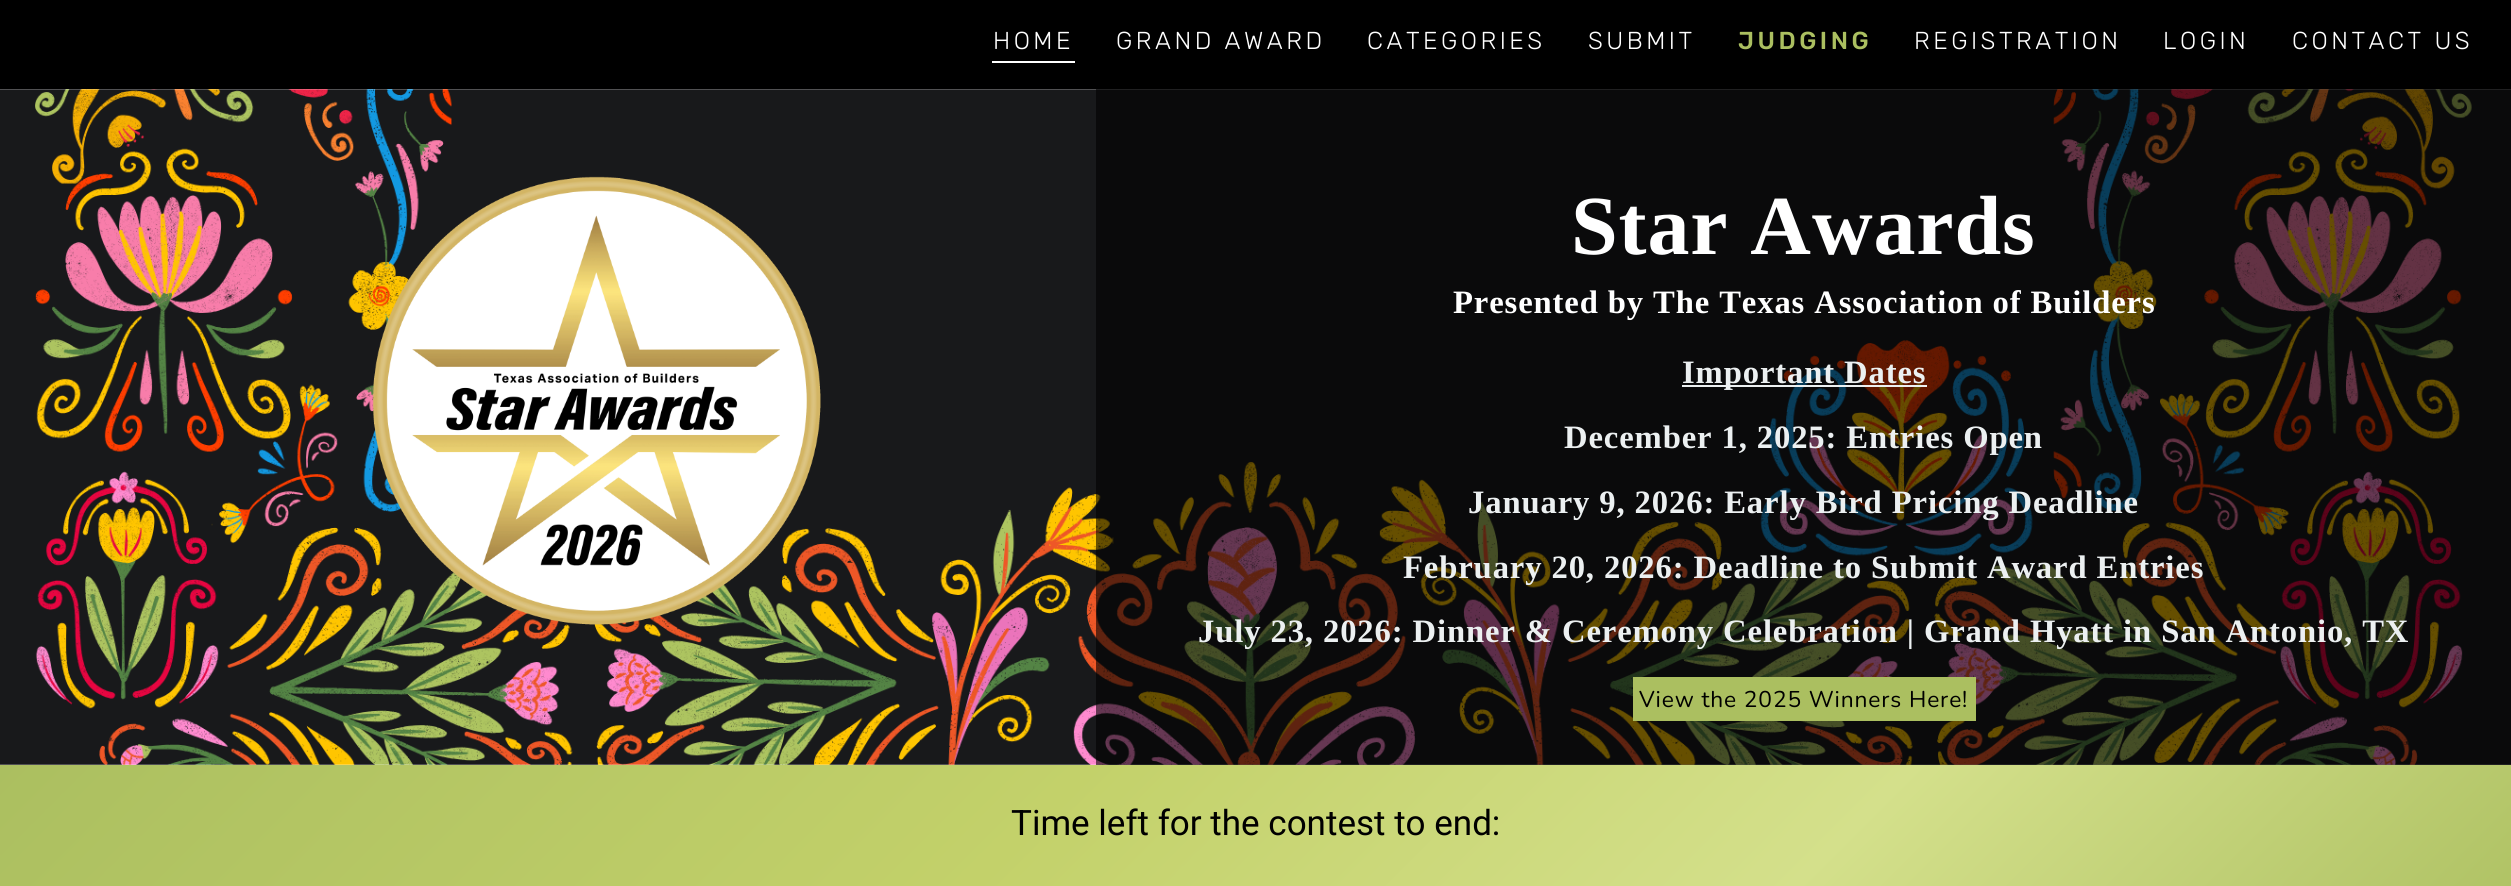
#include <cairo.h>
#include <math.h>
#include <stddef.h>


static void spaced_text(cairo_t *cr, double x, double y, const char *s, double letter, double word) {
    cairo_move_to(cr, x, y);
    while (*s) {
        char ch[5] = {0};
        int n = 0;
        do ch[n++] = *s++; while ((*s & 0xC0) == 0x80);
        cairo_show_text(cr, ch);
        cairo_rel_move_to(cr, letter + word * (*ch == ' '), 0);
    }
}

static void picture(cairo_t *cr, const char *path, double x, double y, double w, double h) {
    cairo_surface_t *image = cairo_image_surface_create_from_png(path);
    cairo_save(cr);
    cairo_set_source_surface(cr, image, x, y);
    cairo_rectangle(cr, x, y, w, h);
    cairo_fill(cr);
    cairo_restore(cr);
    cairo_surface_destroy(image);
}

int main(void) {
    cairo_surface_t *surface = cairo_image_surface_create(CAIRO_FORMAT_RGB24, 2511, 886);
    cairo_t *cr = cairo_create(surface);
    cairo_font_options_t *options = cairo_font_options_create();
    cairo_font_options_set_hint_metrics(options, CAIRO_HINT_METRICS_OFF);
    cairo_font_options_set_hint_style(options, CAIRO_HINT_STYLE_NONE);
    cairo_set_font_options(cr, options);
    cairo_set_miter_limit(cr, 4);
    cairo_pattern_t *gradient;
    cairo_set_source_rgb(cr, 1, 1, 1);
    cairo_paint(cr);
    cairo_set_source_rgb(cr, 0, 0, 0);
    cairo_rectangle(cr, 0, 0, 2511, 89);
    cairo_fill(cr);
    cairo_set_source_rgb(cr, 1, 1, 1);
    cairo_rectangle(cr, 992, 61, 83, 2);
    cairo_fill(cr);
    cairo_select_font_face(cr, "Rubik Light", CAIRO_FONT_SLANT_NORMAL, CAIRO_FONT_WEIGHT_NORMAL);
    cairo_set_font_size(cr, 24.5);
    spaced_text(cr, 993, 49, "HOME", 3.5, 0);
    spaced_text(cr, 1116, 49, "GRAND AWARD", 3.5, 0);
    spaced_text(cr, 1367, 49, "CATEGORIES", 3.5, 0);
    spaced_text(cr, 1588, 49, "SUBMIT", 3.5, 0);
    cairo_select_font_face(cr, "Rubik Medium", CAIRO_FONT_SLANT_NORMAL, CAIRO_FONT_WEIGHT_NORMAL);
    cairo_set_source_rgb(cr, 0.671, 0.749, 0.376);
    spaced_text(cr, 1738, 49, "JUDGING", 3.5, 0);
    cairo_select_font_face(cr, "Rubik Light", CAIRO_FONT_SLANT_NORMAL, CAIRO_FONT_WEIGHT_NORMAL);
    cairo_set_source_rgb(cr, 1, 1, 1);
    spaced_text(cr, 1914, 49, "REGISTRATION", 3.5, 0);
    spaced_text(cr, 2163, 49, "LOGIN", 3.5, 0);
    spaced_text(cr, 2292, 49, "CONTACT US", 3.5, 0);
    picture(cr, "img1.png", 0, 89, 2511, 676);
    picture(cr, "img2.png", 372, 176, 449, 449);
    cairo_set_source_rgba(cr, 0, 0, 0, 0.6);
    cairo_rectangle(cr, 1096, 89, 1415, 676);
    cairo_fill(cr);
    cairo_select_font_face(cr, "Liberation Serif", CAIRO_FONT_SLANT_NORMAL, CAIRO_FONT_WEIGHT_BOLD);
    cairo_set_font_size(cr, 84);
    cairo_set_source_rgb(cr, 1, 1, 1);
    spaced_text(cr, 1571, 254, "Star Awards", 0.88, 0);
    cairo_set_font_size(cr, 32.65);
    spaced_text(cr, 1453, 313, "Presented by The Texas Association of Builders", 0.88, 0);
    cairo_set_source_rgb(cr, 0.925, 0.941, 0.945);
    cairo_rectangle(cr, 1682, 385, 245, 2);
    cairo_fill(cr);
    spaced_text(cr, 1682, 383, "Important Dates", 0.88, 0);
    spaced_text(cr, 1564, 448, "December 1, 2025: Entries Open", 0.88, 0);
    spaced_text(cr, 1468, 513, "January 9, 2026: Early Bird Pricing Deadline", 0.88, 0);
    spaced_text(cr, 1403, 578, "February 20, 2026: Deadline to Submit Award Entries", 0.88, 0);
    spaced_text(cr, 1198, 642, "July 23, 2026: Dinner & Ceremony Celebration | Grand Hyatt in San Antonio, TX", 0.88, 0);
    cairo_set_source_rgb(cr, 0.671, 0.749, 0.376);
    cairo_rectangle(cr, 1633, 677, 343, 44);
    cairo_fill(cr);
    cairo_select_font_face(cr, "Nunito", CAIRO_FONT_SLANT_NORMAL, CAIRO_FONT_WEIGHT_NORMAL);
    cairo_set_font_size(cr, 22.75);
    cairo_set_source_rgb(cr, 0, 0, 0);
    spaced_text(cr, 1639, 707, "View the 2025 Winners Here!", 0.88, 0);
    gradient = cairo_pattern_create_linear(571, 194, 1940, 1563);
    cairo_pattern_add_color_stop_rgba(gradient, 0, 0.671, 0.749, 0.376, 1);
    cairo_pattern_add_color_stop_rgba(gradient, 0.4, 0.765, 0.82, 0.416, 1);
    cairo_pattern_add_color_stop_rgba(gradient, 0.7, 0.831, 0.878, 0.545, 1);
    cairo_pattern_add_color_stop_rgba(gradient, 1, 0.671, 0.749, 0.376, 1);
    cairo_set_source(cr, gradient);
    cairo_pattern_destroy(gradient);
    cairo_rectangle(cr, 0, 765, 2511, 121);
    cairo_fill(cr);
    cairo_select_font_face(cr, "Roboto", CAIRO_FONT_SLANT_NORMAL, CAIRO_FONT_WEIGHT_NORMAL);
    cairo_set_font_size(cr, 35);
    cairo_set_source_rgb(cr, 0, 0, 0);
    cairo_move_to(cr, 1011, 835);
    cairo_show_text(cr, "Time left for the contest to end:");
    cairo_surface_write_to_png(surface, "page.png");
    cairo_font_options_destroy(options);
    cairo_destroy(cr);
    cairo_surface_destroy(surface);
    return 0;
}
